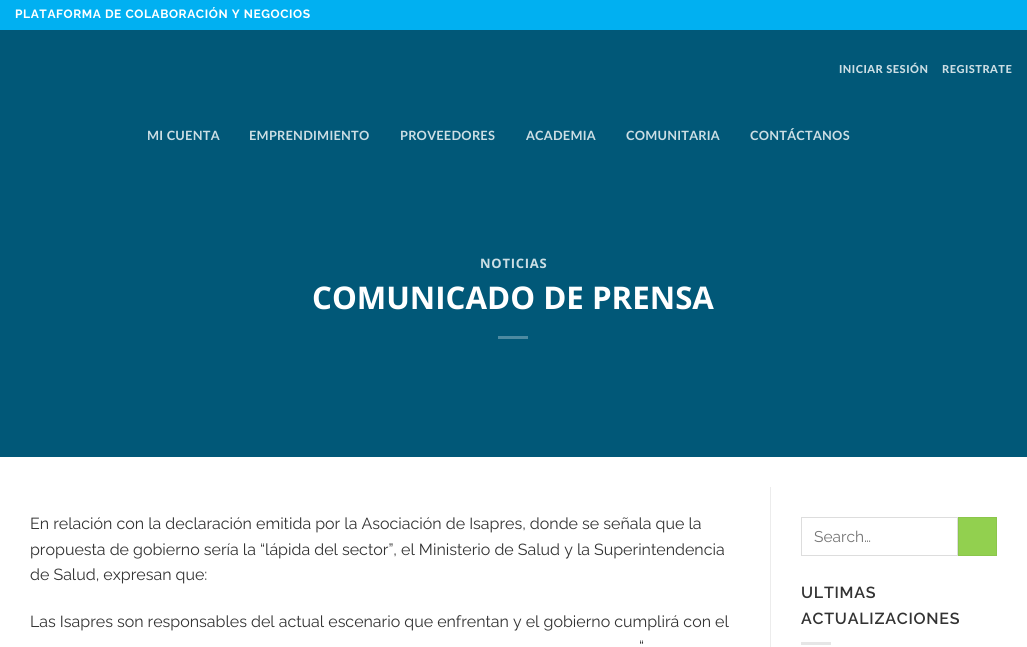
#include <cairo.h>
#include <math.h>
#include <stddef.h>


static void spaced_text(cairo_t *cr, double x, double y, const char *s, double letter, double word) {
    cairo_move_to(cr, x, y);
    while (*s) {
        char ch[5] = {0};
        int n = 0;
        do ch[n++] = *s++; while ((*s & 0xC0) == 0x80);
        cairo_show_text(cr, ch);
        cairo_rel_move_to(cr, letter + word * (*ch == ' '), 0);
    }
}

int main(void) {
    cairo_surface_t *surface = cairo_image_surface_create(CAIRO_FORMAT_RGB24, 1027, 647);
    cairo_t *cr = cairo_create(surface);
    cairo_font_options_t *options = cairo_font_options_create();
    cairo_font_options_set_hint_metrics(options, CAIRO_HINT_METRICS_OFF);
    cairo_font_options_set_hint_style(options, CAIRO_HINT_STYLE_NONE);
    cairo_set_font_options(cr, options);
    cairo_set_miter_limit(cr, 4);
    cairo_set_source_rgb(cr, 1, 1, 1);
    cairo_paint(cr);
    cairo_set_source_rgb(cr, 0.004, 0.69, 0.945);
    cairo_rectangle(cr, 0, 0, 1027, 30);
    cairo_fill(cr);
    cairo_select_font_face(cr, "Raleway", CAIRO_FONT_SLANT_NORMAL, CAIRO_FONT_WEIGHT_BOLD);
    cairo_set_font_size(cr, 12);
    cairo_set_source_rgb(cr, 1, 1, 1);
    spaced_text(cr, 15, 18, "PLATAFORMA DE COLABORACIÓN Y NEGOCIOS", 0.6, 0);
    cairo_set_source_rgb(cr, 0.004, 0.345, 0.471);
    cairo_rectangle(cr, 0, 30, 1027, 427);
    cairo_fill(cr);
    cairo_select_font_face(cr, "Lato Black", CAIRO_FONT_SLANT_NORMAL, CAIRO_FONT_WEIGHT_NORMAL);
    cairo_set_font_size(cr, 11);
    cairo_set_source_rgb(cr, 0.8, 0.871, 0.894);
    spaced_text(cr, 839, 73, "INICIAR SESIÓN", 0.5, 0);
    spaced_text(cr, 942, 73, "REGISTRATE", 0.5, 0);
    cairo_select_font_face(cr, "Lato", CAIRO_FONT_SLANT_NORMAL, CAIRO_FONT_WEIGHT_BOLD);
    cairo_set_font_size(cr, 12.75);
    spaced_text(cr, 147, 140, "MI CUENTA", 0.25, 0);
    spaced_text(cr, 249, 140, "EMPRENDIMIENTO", 0.25, 0);
    spaced_text(cr, 400, 140, "PROVEEDORES", 0.25, 0);
    spaced_text(cr, 526, 140, "ACADEMIA", 0.25, 0);
    spaced_text(cr, 626, 140, "COMUNITARIA", 0.25, 0);
    spaced_text(cr, 750, 140, "CONTÁCTANOS", 0.25, 0);
    cairo_select_font_face(cr, "Open Sans", CAIRO_FONT_SLANT_NORMAL, CAIRO_FONT_WEIGHT_BOLD);
    cairo_set_font_size(cr, 13);
    spaced_text(cr, 480, 268, "NOTICIAS", 0.75, 0);
    cairo_set_font_size(cr, 31.25);
    cairo_set_source_rgb(cr, 1, 1, 1);
    cairo_move_to(cr, 312, 309);
    cairo_show_text(cr, "COMUNICADO DE PRENSA");
    cairo_set_source_rgb(cr, 0.302, 0.541, 0.631);
    cairo_rectangle(cr, 498, 336, 30, 3);
    cairo_fill(cr);
    cairo_select_font_face(cr, "Raleway", CAIRO_FONT_SLANT_NORMAL, CAIRO_FONT_WEIGHT_NORMAL);
    cairo_set_font_size(cr, 16);
    cairo_set_source_rgb(cr, 0.2, 0.2, 0.2);
    cairo_move_to(cr, 30, 529);
    cairo_show_text(cr, "En relación con la declaración emitida por la Asociación de Isapres, donde se señala que la");
    cairo_move_to(cr, 30, 555);
    cairo_show_text(cr, "propuesta de gobierno sería la “lápida del sector”, el Ministerio de Salud y la Superintendencia");
    cairo_move_to(cr, 30, 580);
    cairo_show_text(cr, "de Salud, expresan que:");
    cairo_move_to(cr, 30, 627);
    cairo_show_text(cr, "Las Isapres son responsables del actual escenario que enfrentan y el gobierno cumplirá con el");
    cairo_move_to(cr, 639, 652);
    cairo_show_text(cr, "“");
    cairo_set_source_rgb(cr, 0.925, 0.925, 0.925);
    cairo_rectangle(cr, 770, 487, 1, 160);
    cairo_fill(cr);
    cairo_rectangle(cr, 801.5, 517.5, 156, 38);
    cairo_set_source_rgb(cr, 0.867, 0.867, 0.867);
    cairo_set_line_width(cr, 1);
    cairo_stroke(cr);
    cairo_set_font_size(cr, 15.5);
    cairo_set_source_rgb(cr, 0.459, 0.459, 0.459);
    cairo_move_to(cr, 814, 542);
    cairo_show_text(cr, "Search…");
    cairo_set_source_rgb(cr, 0.573, 0.816, 0.31);
    cairo_rectangle(cr, 958.5, 517.5, 38, 38);
    cairo_fill_preserve(cr);
    cairo_set_source_rgb(cr, 0.545, 0.776, 0.294);
    cairo_stroke(cr);
    cairo_select_font_face(cr, "Raleway SemiBold", CAIRO_FONT_SLANT_NORMAL, CAIRO_FONT_WEIGHT_NORMAL);
    cairo_set_font_size(cr, 16);
    cairo_set_source_rgb(cr, 0.2, 0.2, 0.2);
    spaced_text(cr, 801, 598, "ULTIMAS", 0.75, 0);
    spaced_text(cr, 801, 624, "ACTUALIZACIONES", 0.75, 0);
    cairo_set_source_rgb(cr, 0.902, 0.902, 0.902);
    cairo_rectangle(cr, 801, 642, 30, 3);
    cairo_fill(cr);
    cairo_surface_write_to_png(surface, "page.png");
    cairo_font_options_destroy(options);
    cairo_destroy(cr);
    cairo_surface_destroy(surface);
    return 0;
}
